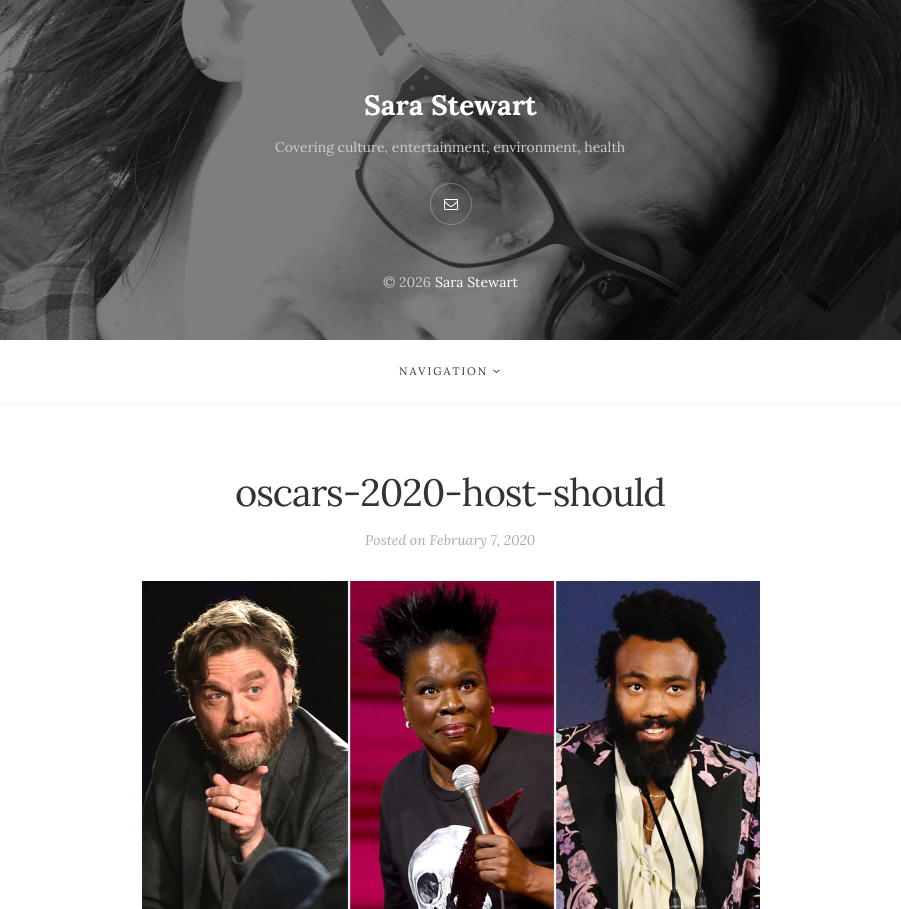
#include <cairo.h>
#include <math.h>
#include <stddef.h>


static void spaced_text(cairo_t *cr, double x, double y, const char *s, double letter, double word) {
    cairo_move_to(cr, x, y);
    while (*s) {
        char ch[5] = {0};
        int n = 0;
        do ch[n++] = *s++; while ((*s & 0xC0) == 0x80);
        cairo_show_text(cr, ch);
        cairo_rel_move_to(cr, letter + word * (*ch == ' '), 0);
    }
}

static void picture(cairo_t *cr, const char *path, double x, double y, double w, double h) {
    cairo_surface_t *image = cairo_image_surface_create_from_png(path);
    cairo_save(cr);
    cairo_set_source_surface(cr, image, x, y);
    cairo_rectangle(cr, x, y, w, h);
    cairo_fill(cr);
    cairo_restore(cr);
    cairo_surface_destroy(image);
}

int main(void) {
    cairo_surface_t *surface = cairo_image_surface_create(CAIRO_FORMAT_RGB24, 901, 909);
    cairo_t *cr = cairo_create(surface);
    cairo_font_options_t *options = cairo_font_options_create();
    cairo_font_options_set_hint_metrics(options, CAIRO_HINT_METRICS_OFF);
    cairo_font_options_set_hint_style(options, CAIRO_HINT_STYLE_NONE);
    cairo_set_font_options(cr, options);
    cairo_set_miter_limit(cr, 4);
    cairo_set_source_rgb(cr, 1, 1, 1);
    cairo_paint(cr);
    picture(cr, "img1.png", 0, 0, 901, 340);
    cairo_select_font_face(cr, "Lora", CAIRO_FONT_SLANT_NORMAL, CAIRO_FONT_WEIGHT_BOLD);
    cairo_set_font_size(cr, 28);
    cairo_set_source_rgb(cr, 1, 1, 1);
    cairo_move_to(cr, 364, 115);
    cairo_show_text(cr, "Sara Stewart");
    cairo_select_font_face(cr, "Lora", CAIRO_FONT_SLANT_NORMAL, CAIRO_FONT_WEIGHT_NORMAL);
    cairo_set_font_size(cr, 14);
    cairo_set_source_rgb(cr, 0.8, 0.8, 0.8);
    cairo_move_to(cr, 275, 152);
    cairo_show_text(cr, "Covering culture, entertainment, environment, health");
    cairo_new_path(cr);
    cairo_arc(cr, 451, 204, 20.5, 0, 2 * M_PI);
    cairo_set_source_rgba(cr, 1, 1, 1, 0.25);
    cairo_set_line_width(cr, 1);
    cairo_stroke(cr);
    picture(cr, "img2.png", 444, 199, 14, 11);
    cairo_set_source_rgb(cr, 0.8, 0.8, 0.8);
    cairo_move_to(cr, 383, 287);
    cairo_show_text(cr, "© 2026");
    cairo_set_source_rgb(cr, 1, 1, 1);
    cairo_move_to(cr, 435, 287);
    cairo_show_text(cr, "Sara Stewart");
    cairo_set_source_rgb(cr, 0.949, 0.949, 0.949);
    cairo_rectangle(cr, 0, 404, 901, 1);
    cairo_fill(cr);
    cairo_set_font_size(cr, 11);
    cairo_set_source_rgb(cr, 0.2, 0.2, 0.2);
    spaced_text(cr, 399, 375, "NAVIGATION", 2, 0);
    picture(cr, "img3.png", 493, 369, 7, 5);
    cairo_set_font_size(cr, 38);
    spaced_text(cr, 235, 506, "oscars-2020-host-should", -1, 0);
    cairo_select_font_face(cr, "Lora", CAIRO_FONT_SLANT_ITALIC, CAIRO_FONT_WEIGHT_NORMAL);
    cairo_set_font_size(cr, 14);
    cairo_set_source_rgb(cr, 0.667, 0.667, 0.667);
    cairo_move_to(cr, 365, 545);
    cairo_show_text(cr, "Posted on February 7, 2020");
    picture(cr, "img4.png", 142, 581, 618, 328);
    cairo_surface_write_to_png(surface, "page.png");
    cairo_font_options_destroy(options);
    cairo_destroy(cr);
    cairo_surface_destroy(surface);
    return 0;
}
